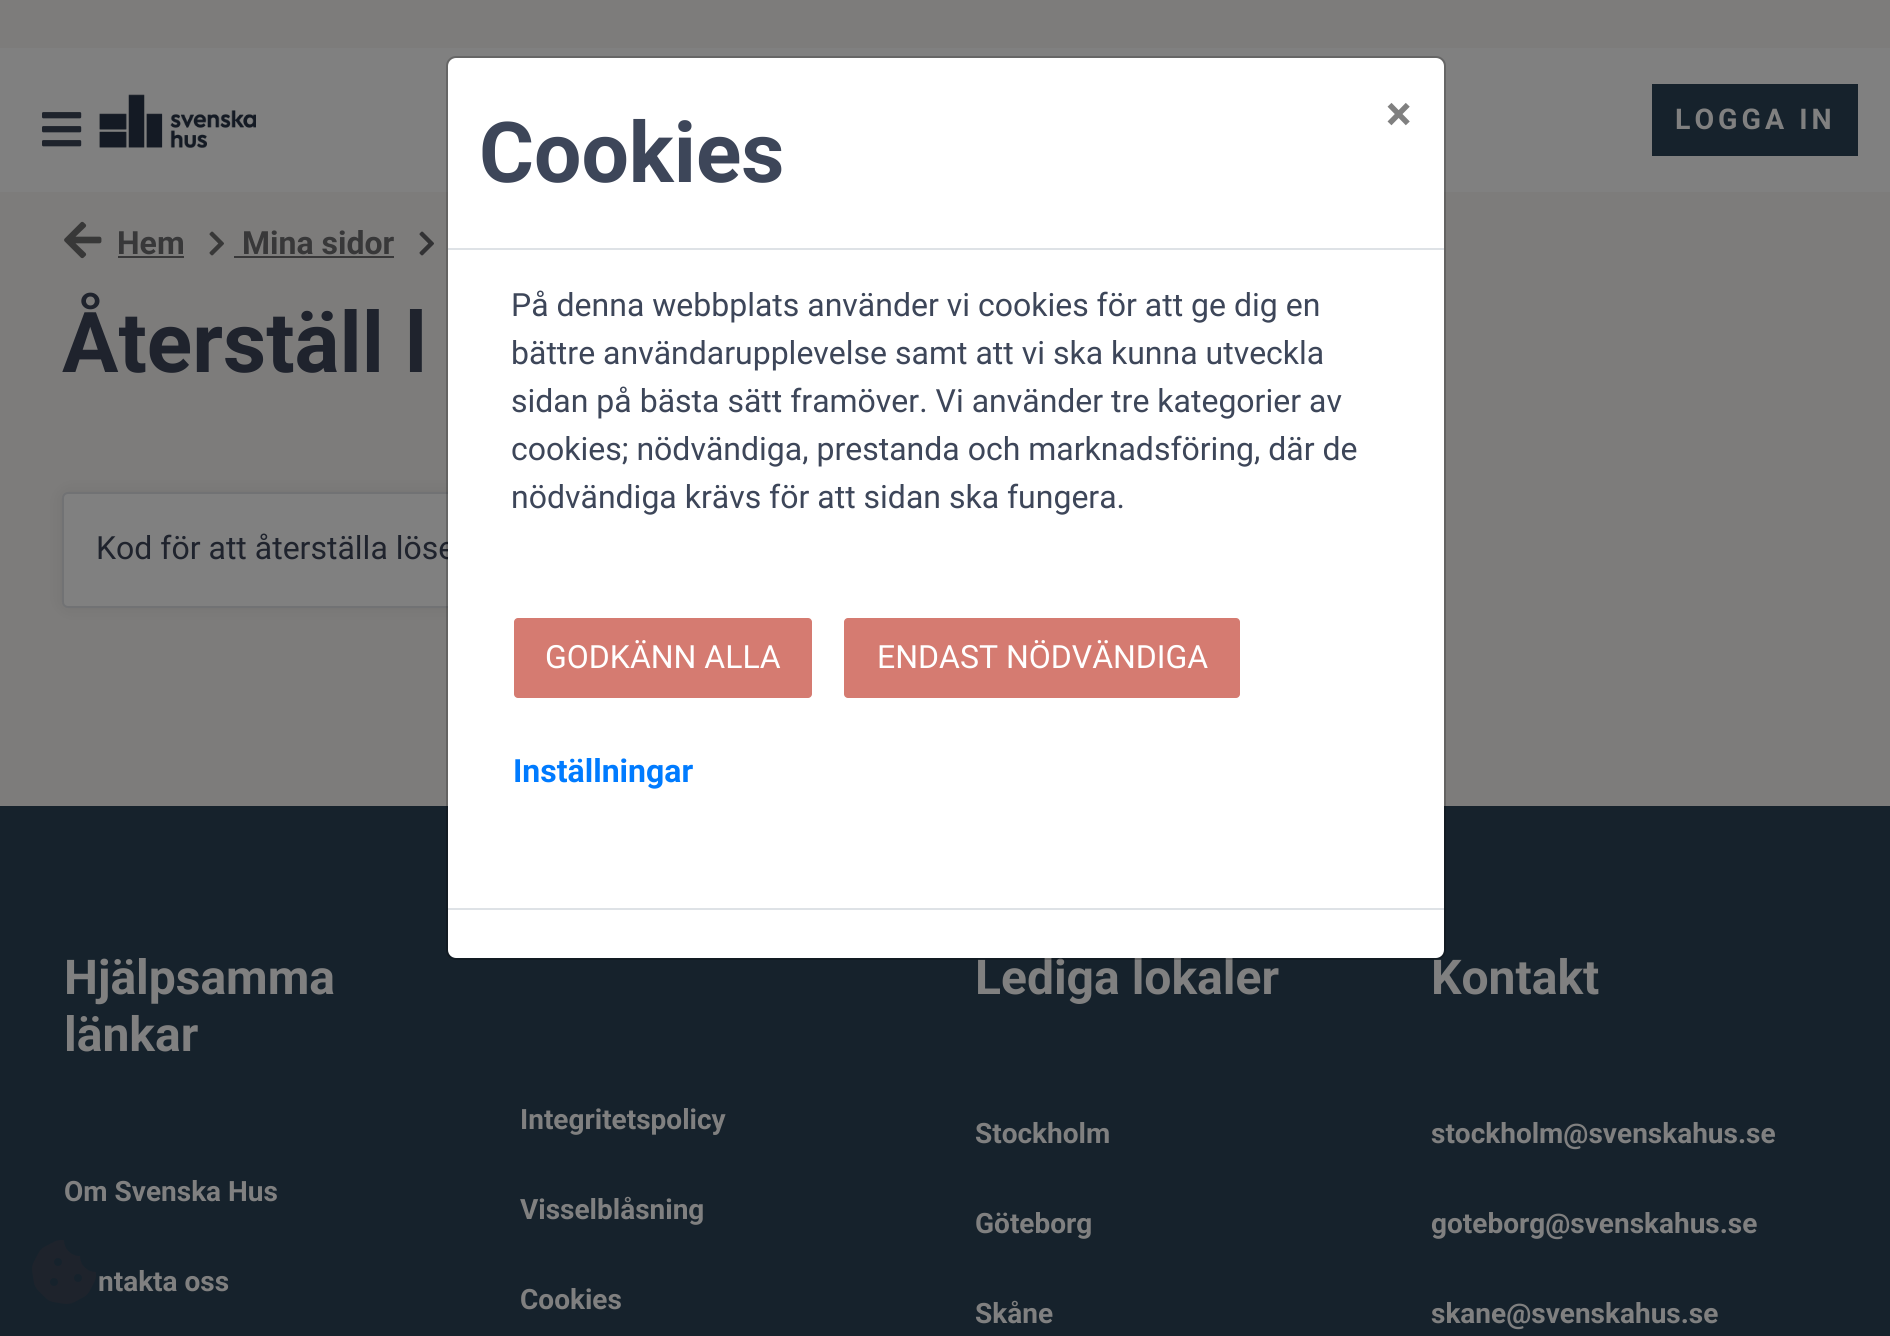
#include <cairo.h>
#include <math.h>
#include <stddef.h>


static void spaced_text(cairo_t *cr, double x, double y, const char *s, double letter, double word) {
    cairo_move_to(cr, x, y);
    while (*s) {
        char ch[5] = {0};
        int n = 0;
        do ch[n++] = *s++; while ((*s & 0xC0) == 0x80);
        cairo_show_text(cr, ch);
        cairo_rel_move_to(cr, letter + word * (*ch == ' '), 0);
    }
}

static void round_rect(cairo_t *cr, double x, double y, double w, double h, double r) {
    cairo_new_sub_path(cr);
    cairo_arc(cr, x + w - r, y + h - r, r, 0, M_PI / 2);
    cairo_arc(cr, x + r, y + h - r, r, M_PI / 2, M_PI);
    cairo_arc(cr, x + r, y + r, r, M_PI, 1.5 * M_PI);
    cairo_arc(cr, x + w - r, y + r, r, 1.5 * M_PI, 2 * M_PI);
    cairo_close_path(cr);
}

static void shadow(cairo_t *cr, double x, double y, double w, double h, double r, double blur, double alpha) {
    cairo_push_group_with_content(cr, CAIRO_CONTENT_ALPHA);
    cairo_set_operator(cr, CAIRO_OPERATOR_SOURCE);
    for (int i = 15; i >= -15 && fmin(w, h) + blur * i / 3 > 0; i -= 2) {
        double e = blur * i / 6;
        cairo_set_source_rgba(cr, 0, 0, 0, alpha * erfc((i - 1) / 8.5) / 2);
        round_rect(cr, x - e, y - e, w + 2 * e, h + 2 * e, fmax(0, fmin(r + e + blur * .6, fmin(w, h) / 2 + e)));
        cairo_fill(cr);
    }
    cairo_pattern_t *soft = cairo_pop_group(cr);
    cairo_mask(cr, soft);
    cairo_pattern_destroy(soft);
}

static void picture(cairo_t *cr, const char *path, double x, double y, double w, double h) {
    cairo_surface_t *image = cairo_image_surface_create_from_png(path);
    cairo_save(cr);
    cairo_set_source_surface(cr, image, x, y);
    cairo_rectangle(cr, x, y, w, h);
    cairo_fill(cr);
    cairo_restore(cr);
    cairo_surface_destroy(image);
}

int main(void) {
    cairo_surface_t *surface = cairo_image_surface_create(CAIRO_FORMAT_RGB24, 1890, 1336);
    cairo_t *cr = cairo_create(surface);
    cairo_font_options_t *options = cairo_font_options_create();
    cairo_font_options_set_hint_metrics(options, CAIRO_HINT_METRICS_OFF);
    cairo_font_options_set_hint_style(options, CAIRO_HINT_STYLE_NONE);
    cairo_set_font_options(cr, options);
    cairo_set_miter_limit(cr, 4);
    cairo_set_source_rgb(cr, 0.49, 0.486, 0.482);
    cairo_paint(cr);
    cairo_set_source_rgb(cr, 0.502, 0.502, 0.502);
    cairo_rectangle(cr, 0, 48, 1890, 144);
    cairo_fill(cr);
    cairo_set_source_rgb(cr, 0, 0, 0);
    shadow(cr, 62, 492, 822, 116, 6, 10, 0.08);
    cairo_set_source_rgb(cr, 0.502, 0.502, 0.502);
    round_rect(cr, 63, 493, 820, 114, 5);
    cairo_fill_preserve(cr);
    cairo_set_source_rgb(cr, 0.443, 0.447, 0.455);
    cairo_stroke(cr);
    cairo_select_font_face(cr, "Roboto", CAIRO_FONT_SLANT_NORMAL, CAIRO_FONT_WEIGHT_NORMAL);
    cairo_set_font_size(cr, 32);
    cairo_set_source_rgb(cr, 0.122, 0.137, 0.176);
    cairo_move_to(cr, 96, 559);
    cairo_show_text(cr, "Kod för att återställa löse");
    cairo_set_source_rgb(cr, 0.086, 0.133, 0.173);
    cairo_rectangle(cr, 0, 806, 1890, 530);
    cairo_fill(cr);
    cairo_set_source_rgb(cr, 1, 1, 1);
    round_rect(cr, 448, 58, 996, 900, 8);
    cairo_fill(cr);
    cairo_select_font_face(cr, "Roboto", CAIRO_FONT_SLANT_NORMAL, CAIRO_FONT_WEIGHT_BOLD);
    cairo_set_font_size(cr, 48);
    cairo_set_source_rgb(cr, 0.502, 0.502, 0.502);
    cairo_move_to(cr, 975, 994);
    cairo_show_text(cr, "Lediga lokaler");
    cairo_move_to(cr, 1431, 994);
    cairo_show_text(cr, "Kontakt");
    round_rect(cr, 447, 57, 998, 902, 9);
    cairo_set_source_rgba(cr, 0, 0, 0, 0.2);
    cairo_stroke(cr);
    cairo_set_source_rgb(cr, 0.871, 0.886, 0.902);
    cairo_rectangle(cr, 448, 248, 996, 2);
    cairo_fill(cr);
    cairo_set_source_rgb(cr, 0.502, 0.502, 0.502);
    cairo_move_to(cr, 1386, 130);
    cairo_show_text(cr, "×");
    cairo_set_font_size(cr, 84);
    cairo_set_source_rgb(cr, 0.239, 0.275, 0.349);
    cairo_move_to(cr, 479, 182);
    cairo_show_text(cr, "Cookies");
    cairo_select_font_face(cr, "Roboto", CAIRO_FONT_SLANT_NORMAL, CAIRO_FONT_WEIGHT_NORMAL);
    cairo_set_font_size(cr, 32);
    cairo_move_to(cr, 511, 316);
    cairo_show_text(cr, "På denna webbplats använder vi cookies för att ge dig en");
    cairo_move_to(cr, 511, 364);
    cairo_show_text(cr, "bättre användarupplevelse samt att vi ska kunna utveckla");
    cairo_move_to(cr, 511, 412);
    cairo_show_text(cr, "sidan på bästa sätt framöver. Vi använder tre kategorier av");
    cairo_move_to(cr, 511, 460);
    cairo_show_text(cr, "cookies; nödvändiga, prestanda och marknadsföring, där de");
    cairo_move_to(cr, 511, 508);
    cairo_show_text(cr, "nödvändiga krävs för att sidan ska fungera.");
    cairo_set_source_rgb(cr, 0.835, 0.482, 0.443);
    round_rect(cr, 514, 618, 298, 80, 4);
    cairo_fill(cr);
    cairo_set_source_rgb(cr, 1, 1, 1);
    cairo_move_to(cr, 545, 668);
    cairo_show_text(cr, "GODKÄNN ALLA");
    cairo_set_source_rgb(cr, 0.835, 0.482, 0.443);
    round_rect(cr, 844, 618, 396, 80, 4);
    cairo_fill(cr);
    cairo_set_source_rgb(cr, 1, 1, 1);
    cairo_move_to(cr, 877, 668);
    cairo_show_text(cr, "ENDAST NÖDVÄNDIGA");
    cairo_select_font_face(cr, "Roboto", CAIRO_FONT_SLANT_NORMAL, CAIRO_FONT_WEIGHT_BOLD);
    cairo_set_source_rgb(cr, 0, 0.482, 1);
    cairo_move_to(cr, 513, 782);
    cairo_show_text(cr, "Inställningar");
    cairo_set_source_rgb(cr, 0.871, 0.886, 0.902);
    cairo_rectangle(cr, 448, 908, 996, 2);
    cairo_fill(cr);
    picture(cr, "img1.png", 42, 112, 40, 35);
    picture(cr, "img2.png", 99, 94, 157, 54);
    cairo_set_source_rgb(cr, 0.086, 0.133, 0.173);
    cairo_rectangle(cr, 1652, 84, 206, 72);
    cairo_fill(cr);
    cairo_set_font_size(cr, 28.5);
    cairo_set_source_rgb(cr, 0.502, 0.502, 0.502);
    spaced_text(cr, 1675, 129, "LOGGA IN", 4, 0);
    picture(cr, "img3.png", 64, 221, 38, 38);
    cairo_set_font_size(cr, 32);
    cairo_set_source_rgb(cr, 0.22, 0.22, 0.224);
    cairo_move_to(cr, 117, 254);
    cairo_show_text(cr, "Hem");
    cairo_rectangle(cr, 118, 256, 66, 2);
    cairo_fill(cr);
    picture(cr, "img4.png", 209, 231, 15, 25);
    cairo_move_to(cr, 242, 254);
    cairo_show_text(cr, "Mina sidor");
    cairo_rectangle(cr, 234, 256, 160, 2);
    cairo_fill(cr);
    picture(cr, "img5.png", 419, 231, 15, 25);
    cairo_set_font_size(cr, 84);
    cairo_set_source_rgb(cr, 0.122, 0.137, 0.176);
    cairo_move_to(cr, 62, 372);
    cairo_show_text(cr, "Återställ l");
    cairo_set_font_size(cr, 48);
    cairo_set_source_rgb(cr, 0.502, 0.502, 0.502);
    cairo_move_to(cr, 64, 994);
    cairo_show_text(cr, "Hjälpsamma");
    cairo_move_to(cr, 64, 1051);
    cairo_show_text(cr, "länkar");
    cairo_set_font_size(cr, 28);
    cairo_move_to(cr, 64, 1201);
    cairo_show_text(cr, "Om Svenska Hus");
    cairo_move_to(cr, 98, 1291);
    cairo_show_text(cr, "ntakta oss");
    cairo_move_to(cr, 520, 1129);
    cairo_show_text(cr, "Integritetspolicy");
    cairo_move_to(cr, 520, 1219);
    cairo_show_text(cr, "Visselblåsning");
    cairo_move_to(cr, 520, 1309);
    cairo_show_text(cr, "Cookies");
    cairo_move_to(cr, 975, 1143);
    cairo_show_text(cr, "Stockholm");
    cairo_move_to(cr, 975, 1233);
    cairo_show_text(cr, "Göteborg");
    cairo_move_to(cr, 975, 1323);
    cairo_show_text(cr, "Skåne");
    cairo_move_to(cr, 1431, 1143);
    cairo_show_text(cr, "stockholm@svenskahus.se");
    cairo_move_to(cr, 1431, 1233);
    cairo_show_text(cr, "goteborg@svenskahus.se");
    cairo_move_to(cr, 1431, 1323);
    cairo_show_text(cr, "skane@svenskahus.se");
    picture(cr, "img6.png", 32, 1240, 64, 64);
    cairo_surface_write_to_png(surface, "page.png");
    cairo_font_options_destroy(options);
    cairo_destroy(cr);
    cairo_surface_destroy(surface);
    return 0;
}
